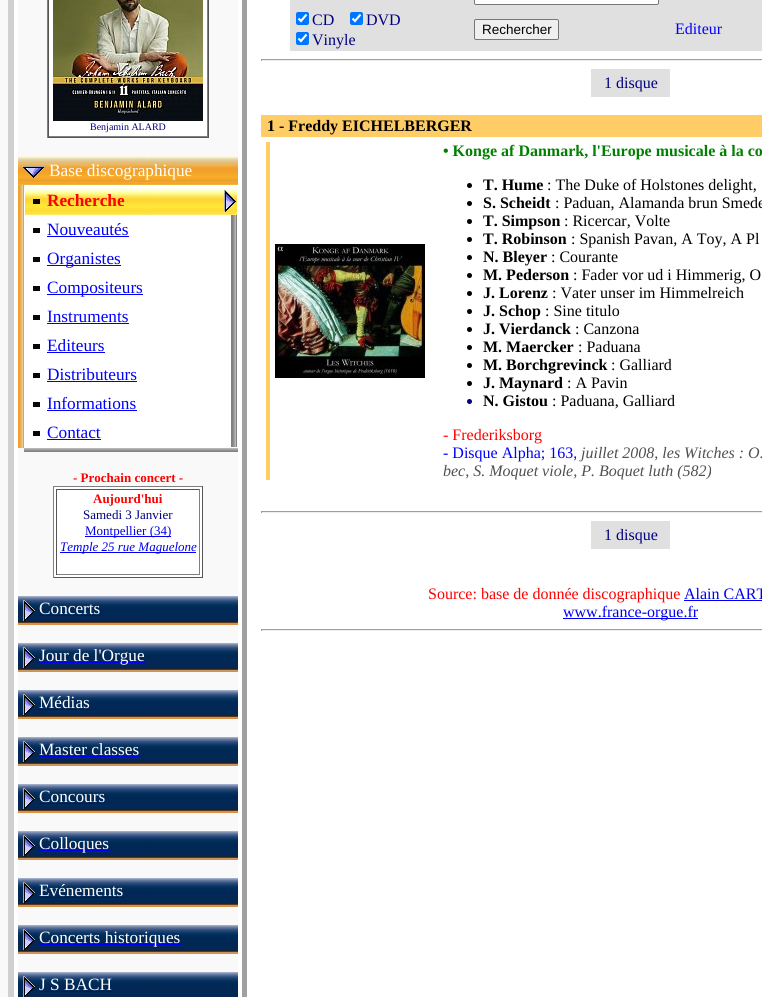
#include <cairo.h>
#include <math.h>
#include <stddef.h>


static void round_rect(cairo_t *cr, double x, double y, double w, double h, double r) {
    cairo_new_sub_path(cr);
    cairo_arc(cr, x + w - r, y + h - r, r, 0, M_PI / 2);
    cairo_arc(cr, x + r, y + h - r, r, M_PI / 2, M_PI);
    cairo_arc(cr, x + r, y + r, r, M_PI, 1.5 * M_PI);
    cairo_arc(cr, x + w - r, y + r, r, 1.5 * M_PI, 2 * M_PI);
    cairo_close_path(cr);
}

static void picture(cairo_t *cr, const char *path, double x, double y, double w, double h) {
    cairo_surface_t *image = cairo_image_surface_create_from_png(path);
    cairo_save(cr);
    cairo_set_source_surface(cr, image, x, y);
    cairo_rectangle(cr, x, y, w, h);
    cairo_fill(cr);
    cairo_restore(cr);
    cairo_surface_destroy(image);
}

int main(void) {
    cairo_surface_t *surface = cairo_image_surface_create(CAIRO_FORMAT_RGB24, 762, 997);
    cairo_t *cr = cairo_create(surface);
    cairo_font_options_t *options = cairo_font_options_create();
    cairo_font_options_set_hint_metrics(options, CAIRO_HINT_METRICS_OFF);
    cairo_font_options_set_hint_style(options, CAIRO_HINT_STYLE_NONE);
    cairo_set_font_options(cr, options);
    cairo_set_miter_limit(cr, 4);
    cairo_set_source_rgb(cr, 0.973, 0.973, 0.973);
    cairo_paint(cr);
    cairo_set_source_rgb(cr, 0.816, 0.816, 0.816);
    cairo_rectangle(cr, 8, 0, 6, 997);
    cairo_fill(cr);
    cairo_set_source_rgb(cr, 1, 1, 1);
    cairo_rectangle(cr, 14, 0, 748, 997);
    cairo_fill(cr);
    cairo_set_source_rgb(cr, 0.973, 0.973, 0.973);
    cairo_rectangle(cr, 18, 0, 220, 972);
    cairo_fill(cr);
    cairo_set_source_rgb(cr, 1, 1, 1);
    cairo_rectangle(cr, 49, 0, 158, 136);
    cairo_fill(cr);
    cairo_set_source_rgb(cr, 0.333, 0.333, 0.333);
    cairo_rectangle(cr, 208, 0, 1, 138);
    cairo_fill(cr);
    cairo_rectangle(cr, 47, 137, 162, 1);
    cairo_fill(cr);
    cairo_set_source_rgb(cr, 0.502, 0.502, 0.502);
    cairo_rectangle(cr, 47, 0, 1, 138);
    cairo_fill(cr);
    cairo_rectangle(cr, 207, 0, 1, 137);
    cairo_fill(cr);
    cairo_rectangle(cr, 48, 136, 160, 1);
    cairo_fill(cr);
    cairo_set_source_rgb(cr, 0.333, 0.333, 0.333);
    cairo_rectangle(cr, 48, 0, 1, 137);
    cairo_fill(cr);
    picture(cr, "img1.png", 53, 0, 150, 121);
    cairo_select_font_face(cr, "Liberation Serif", CAIRO_FONT_SLANT_NORMAL, CAIRO_FONT_WEIGHT_NORMAL);
    cairo_set_font_size(cr, 10);
    cairo_set_source_rgb(cr, 0, 0, 0.502);
    cairo_move_to(cr, 90, 130);
    cairo_show_text(cr, "Benjamin ALARD");
    picture(cr, "img2.png", 18, 156, 220, 29);
    picture(cr, "img3.png", 23, 166, 22, 12);
    cairo_set_font_size(cr, 17.25);
    cairo_set_source_rgb(cr, 1, 1, 1);
    cairo_move_to(cr, 49, 176);
    cairo_show_text(cr, "Base discographique");
    picture(cr, "img4.png", 18, 185, 6, 263);
    cairo_rectangle(cr, 24, 185, 214, 263);
    cairo_fill(cr);
    picture(cr, "img5.png", 25, 187, 212, 28);
    cairo_set_source_rgb(cr, 0.024, 0.024, 0.024);
    cairo_rectangle(cr, 33, 199, 7, 5);
    cairo_fill(cr);
    cairo_select_font_face(cr, "Liberation Serif", CAIRO_FONT_SLANT_NORMAL, CAIRO_FONT_WEIGHT_BOLD);
    cairo_set_source_rgb(cr, 1, 0, 0);
    cairo_move_to(cr, 47, 206);
    cairo_show_text(cr, "Recherche");
    picture(cr, "img6.png", 224, 190, 12, 22);
    cairo_set_source_rgb(cr, 0.024, 0.024, 0.024);
    cairo_rectangle(cr, 33, 228, 7, 5);
    cairo_fill(cr);
    cairo_select_font_face(cr, "Liberation Serif", CAIRO_FONT_SLANT_NORMAL, CAIRO_FONT_WEIGHT_NORMAL);
    cairo_set_source_rgb(cr, 0, 0, 1);
    cairo_move_to(cr, 47, 235);
    cairo_show_text(cr, "Nouveautés");
    cairo_set_source_rgb(cr, 0, 0, 0.933);
    cairo_rectangle(cr, 47, 236, 82, 1);
    cairo_fill(cr);
    picture(cr, "img7.png", 231, 215, 6, 29);
    cairo_set_source_rgb(cr, 0.024, 0.024, 0.024);
    cairo_rectangle(cr, 33, 257, 7, 5);
    cairo_fill(cr);
    cairo_set_source_rgb(cr, 0, 0, 0.933);
    cairo_rectangle(cr, 47, 265, 74, 1);
    cairo_fill(cr);
    cairo_set_source_rgb(cr, 0, 0, 1);
    cairo_move_to(cr, 47, 264);
    cairo_show_text(cr, "Organistes");
    picture(cr, "img7.png", 231, 244, 6, 29);
    cairo_set_source_rgb(cr, 0.024, 0.024, 0.024);
    cairo_rectangle(cr, 33, 286, 7, 5);
    cairo_fill(cr);
    cairo_set_source_rgb(cr, 0, 0, 0.933);
    cairo_rectangle(cr, 47, 294, 96, 1);
    cairo_fill(cr);
    cairo_set_source_rgb(cr, 0, 0, 1);
    cairo_move_to(cr, 47, 293);
    cairo_show_text(cr, "Compositeurs");
    picture(cr, "img7.png", 231, 273, 6, 29);
    cairo_set_source_rgb(cr, 0.024, 0.024, 0.024);
    cairo_rectangle(cr, 33, 315, 7, 5);
    cairo_fill(cr);
    cairo_set_source_rgb(cr, 0, 0, 1);
    cairo_move_to(cr, 47, 322);
    cairo_show_text(cr, "Instruments");
    cairo_set_source_rgb(cr, 0, 0, 0.933);
    cairo_rectangle(cr, 47, 323, 82, 1);
    cairo_fill(cr);
    picture(cr, "img7.png", 231, 302, 6, 29);
    cairo_set_source_rgb(cr, 0.024, 0.024, 0.024);
    cairo_rectangle(cr, 33, 344, 7, 5);
    cairo_fill(cr);
    cairo_set_source_rgb(cr, 0, 0, 1);
    cairo_move_to(cr, 47, 351);
    cairo_show_text(cr, "Editeurs");
    cairo_set_source_rgb(cr, 0, 0, 0.933);
    cairo_rectangle(cr, 47, 352, 58, 1);
    cairo_fill(cr);
    picture(cr, "img7.png", 231, 331, 6, 29);
    cairo_set_source_rgb(cr, 0.024, 0.024, 0.024);
    cairo_rectangle(cr, 33, 373, 7, 5);
    cairo_fill(cr);
    cairo_set_source_rgb(cr, 0, 0, 1);
    cairo_move_to(cr, 47, 380);
    cairo_show_text(cr, "Distributeurs");
    cairo_set_source_rgb(cr, 0, 0, 0.933);
    cairo_rectangle(cr, 47, 381, 90, 1);
    cairo_fill(cr);
    picture(cr, "img7.png", 231, 360, 6, 29);
    cairo_set_source_rgb(cr, 0.024, 0.024, 0.024);
    cairo_rectangle(cr, 33, 402, 7, 5);
    cairo_fill(cr);
    cairo_set_source_rgb(cr, 0, 0, 1);
    cairo_move_to(cr, 47, 409);
    cairo_show_text(cr, "Informations");
    cairo_set_source_rgb(cr, 0, 0, 0.933);
    cairo_rectangle(cr, 47, 410, 90, 1);
    cairo_fill(cr);
    picture(cr, "img7.png", 231, 389, 6, 29);
    cairo_set_source_rgb(cr, 0.024, 0.024, 0.024);
    cairo_rectangle(cr, 33, 431, 7, 5);
    cairo_fill(cr);
    cairo_set_source_rgb(cr, 0, 0, 1);
    cairo_move_to(cr, 47, 438);
    cairo_show_text(cr, "Contact");
    cairo_set_source_rgb(cr, 0, 0, 0.933);
    cairo_rectangle(cr, 47, 439, 54, 1);
    cairo_fill(cr);
    picture(cr, "img7.png", 231, 418, 6, 29);
    picture(cr, "img8.png", 24, 448, 214, 4);
    cairo_select_font_face(cr, "Liberation Serif", CAIRO_FONT_SLANT_NORMAL, CAIRO_FONT_WEIGHT_BOLD);
    cairo_set_font_size(cr, 13);
    cairo_set_source_rgb(cr, 1, 0, 0);
    cairo_move_to(cr, 73, 482);
    cairo_show_text(cr, "- Prochain concert -");
    cairo_set_source_rgb(cr, 1, 1, 1);
    cairo_rectangle(cr, 54, 487, 148, 90);
    cairo_fill(cr);
    cairo_set_source_rgb(cr, 0.502, 0.502, 0.502);
    cairo_rectangle(cr, 53, 486, 150, 1);
    cairo_fill(cr);
    cairo_set_source_rgb(cr, 0.333, 0.333, 0.333);
    cairo_rectangle(cr, 202, 486, 1, 92);
    cairo_fill(cr);
    cairo_rectangle(cr, 53, 577, 150, 1);
    cairo_fill(cr);
    cairo_set_source_rgb(cr, 0.502, 0.502, 0.502);
    cairo_rectangle(cr, 53, 486, 1, 92);
    cairo_fill(cr);
    cairo_set_source_rgb(cr, 0.333, 0.333, 0.333);
    cairo_rectangle(cr, 56, 489, 144, 1);
    cairo_fill(cr);
    cairo_set_source_rgb(cr, 0.502, 0.502, 0.502);
    cairo_rectangle(cr, 199, 489, 1, 86);
    cairo_fill(cr);
    cairo_rectangle(cr, 56, 574, 144, 1);
    cairo_fill(cr);
    cairo_set_source_rgb(cr, 0.333, 0.333, 0.333);
    cairo_rectangle(cr, 56, 489, 1, 86);
    cairo_fill(cr);
    cairo_set_source_rgb(cr, 1, 0, 0);
    cairo_move_to(cr, 93, 503);
    cairo_show_text(cr, "Aujourd'hui");
    cairo_select_font_face(cr, "Liberation Serif", CAIRO_FONT_SLANT_NORMAL, CAIRO_FONT_WEIGHT_NORMAL);
    cairo_set_source_rgb(cr, 0, 0, 0.502);
    cairo_move_to(cr, 83, 519);
    cairo_show_text(cr, "Samedi 3 Janvier");
    cairo_set_source_rgb(cr, 0, 0, 0.933);
    cairo_rectangle(cr, 85, 536, 86, 1);
    cairo_fill(cr);
    cairo_move_to(cr, 85, 535);
    cairo_show_text(cr, "Montpellier (34)");
    cairo_rectangle(cr, 60, 552, 136, 1);
    cairo_fill(cr);
    cairo_select_font_face(cr, "Liberation Serif", CAIRO_FONT_SLANT_ITALIC, CAIRO_FONT_WEIGHT_NORMAL);
    cairo_move_to(cr, 60, 551);
    cairo_show_text(cr, "Temple 25 rue Maguelone");
    picture(cr, "img9.png", 18, 596, 220, 29);
    picture(cr, "img10.png", 23, 600, 12, 22);
    cairo_select_font_face(cr, "Liberation Serif", CAIRO_FONT_SLANT_NORMAL, CAIRO_FONT_WEIGHT_NORMAL);
    cairo_set_font_size(cr, 17.25);
    cairo_set_source_rgb(cr, 1, 1, 1);
    cairo_move_to(cr, 39, 614);
    cairo_show_text(cr, "Concerts");
    cairo_set_source_rgb(cr, 0, 0, 0.933);
    cairo_rectangle(cr, 39, 615, 62, 1);
    cairo_fill(cr);
    picture(cr, "img9.png", 18, 643, 220, 29);
    picture(cr, "img10.png", 23, 647, 12, 22);
    cairo_rectangle(cr, 39, 662, 106, 1);
    cairo_fill(cr);
    cairo_set_source_rgb(cr, 1, 1, 1);
    cairo_move_to(cr, 39, 661);
    cairo_show_text(cr, "Jour de l'Orgue");
    picture(cr, "img9.png", 18, 690, 220, 29);
    picture(cr, "img10.png", 23, 694, 12, 22);
    cairo_move_to(cr, 39, 708);
    cairo_show_text(cr, "Médias");
    cairo_set_source_rgb(cr, 0, 0, 0.933);
    cairo_rectangle(cr, 39, 709, 51, 1);
    cairo_fill(cr);
    picture(cr, "img9.png", 18, 737, 220, 29);
    picture(cr, "img10.png", 23, 741, 12, 22);
    cairo_set_source_rgb(cr, 1, 1, 1);
    cairo_move_to(cr, 39, 755);
    cairo_show_text(cr, "Master classes");
    cairo_set_source_rgb(cr, 0, 0, 0.933);
    cairo_rectangle(cr, 39, 756, 101, 1);
    cairo_fill(cr);
    picture(cr, "img9.png", 18, 784, 220, 29);
    picture(cr, "img10.png", 23, 788, 12, 22);
    cairo_set_source_rgb(cr, 1, 1, 1);
    cairo_move_to(cr, 39, 802);
    cairo_show_text(cr, "Concours");
    cairo_set_source_rgb(cr, 0, 0, 0.933);
    cairo_rectangle(cr, 39, 803, 66, 1);
    cairo_fill(cr);
    picture(cr, "img9.png", 18, 831, 220, 29);
    picture(cr, "img10.png", 23, 835, 12, 22);
    cairo_rectangle(cr, 39, 850, 70, 1);
    cairo_fill(cr);
    cairo_set_source_rgb(cr, 1, 1, 1);
    cairo_move_to(cr, 39, 849);
    cairo_show_text(cr, "Colloques");
    picture(cr, "img9.png", 18, 878, 220, 29);
    picture(cr, "img10.png", 23, 882, 12, 22);
    cairo_move_to(cr, 39, 896);
    cairo_show_text(cr, "Evénements");
    cairo_set_source_rgb(cr, 0, 0, 0.933);
    cairo_rectangle(cr, 39, 897, 85, 1);
    cairo_fill(cr);
    picture(cr, "img9.png", 18, 925, 220, 29);
    picture(cr, "img10.png", 23, 929, 12, 22);
    cairo_rectangle(cr, 39, 944, 142, 1);
    cairo_fill(cr);
    cairo_set_source_rgb(cr, 1, 1, 1);
    cairo_move_to(cr, 39, 943);
    cairo_show_text(cr, "Concerts historiques");
    picture(cr, "img11.png", 18, 972, 220, 25);
    picture(cr, "img12.png", 23, 976, 12, 21);
    cairo_move_to(cr, 39, 990);
    cairo_show_text(cr, "J S BACH");
    cairo_set_source_rgb(cr, 0, 0, 0.933);
    cairo_rectangle(cr, 39, 991, 73, 1);
    cairo_fill(cr);
    cairo_set_source_rgb(cr, 0.627, 0.627, 0.627);
    cairo_rectangle(cr, 242, 0, 5, 997);
    cairo_fill(cr);
    cairo_set_source_rgb(cr, 0.878, 0.878, 0.878);
    cairo_rectangle(cr, 290, 0, 472, 51);
    cairo_fill(cr);
    cairo_set_source_rgb(cr, 1, 1, 1);
    round_rect(cr, 474.5, -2.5, 184, 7, 1.5);
    cairo_fill_preserve(cr);
    cairo_set_source_rgb(cr, 0.463, 0.463, 0.463);
    cairo_set_line_width(cr, 1);
    cairo_stroke(cr);
    cairo_set_source_rgb(cr, 0, 0.459, 1);
    round_rect(cr, 296, 12, 13, 13, 2);
    cairo_fill(cr);
    cairo_new_path(cr);
    cairo_move_to(cr, 298.5, 18.5);
    cairo_line_to(cr, 301, 21);
    cairo_line_to(cr, 306.5, 14.5);
    cairo_set_source_rgb(cr, 1, 1, 1);
    cairo_set_line_width(cr, 2.1);
    cairo_stroke(cr);
    cairo_set_font_size(cr, 16);
    cairo_set_source_rgb(cr, 0, 0, 0.502);
    cairo_move_to(cr, 312, 25);
    cairo_show_text(cr, "CD");
    cairo_set_source_rgb(cr, 0, 0.459, 1);
    round_rect(cr, 350, 12, 13, 13, 2);
    cairo_fill(cr);
    cairo_new_path(cr);
    cairo_move_to(cr, 352.5, 18.5);
    cairo_line_to(cr, 355, 21);
    cairo_line_to(cr, 360.5, 14.5);
    cairo_set_source_rgb(cr, 1, 1, 1);
    cairo_stroke(cr);
    cairo_set_source_rgb(cr, 0, 0, 0.502);
    cairo_move_to(cr, 366, 25);
    cairo_show_text(cr, "DVD");
    cairo_set_source_rgb(cr, 0, 0.459, 1);
    round_rect(cr, 296, 32, 13, 13, 2);
    cairo_fill(cr);
    cairo_new_path(cr);
    cairo_move_to(cr, 298.5, 38.5);
    cairo_line_to(cr, 301, 41);
    cairo_line_to(cr, 306.5, 34.5);
    cairo_set_source_rgb(cr, 1, 1, 1);
    cairo_stroke(cr);
    cairo_set_source_rgb(cr, 0, 0, 0.502);
    cairo_move_to(cr, 312, 45);
    cairo_show_text(cr, "Vinyle");
    cairo_set_source_rgb(cr, 0.937, 0.937, 0.937);
    round_rect(cr, 474.5, 19.5, 84, 20, 1.5);
    cairo_fill_preserve(cr);
    cairo_set_source_rgb(cr, 0.463, 0.463, 0.463);
    cairo_set_line_width(cr, 1);
    cairo_stroke(cr);
    cairo_select_font_face(cr, "Liberation Sans", CAIRO_FONT_SLANT_NORMAL, CAIRO_FONT_WEIGHT_NORMAL);
    cairo_set_font_size(cr, 13.5);
    cairo_set_source_rgb(cr, 0, 0, 0);
    cairo_move_to(cr, 482, 34);
    cairo_show_text(cr, "Rechercher");
    cairo_select_font_face(cr, "Liberation Serif", CAIRO_FONT_SLANT_NORMAL, CAIRO_FONT_WEIGHT_NORMAL);
    cairo_set_font_size(cr, 16);
    cairo_set_source_rgb(cr, 0, 0, 1);
    cairo_move_to(cr, 675, 34);
    cairo_show_text(cr, "Editeur");
    cairo_set_source_rgb(cr, 0.624, 0.624, 0.624);
    cairo_rectangle(cr, 261, 59, 501, 1);
    cairo_fill(cr);
    cairo_set_source_rgb(cr, 0.933, 0.933, 0.933);
    cairo_rectangle(cr, 261, 60, 501, 1);
    cairo_fill(cr);
    cairo_set_source_rgb(cr, 0.624, 0.624, 0.624);
    cairo_rectangle(cr, 261, 59, 1, 2);
    cairo_fill(cr);
    cairo_set_source_rgb(cr, 0.878, 0.878, 0.878);
    cairo_rectangle(cr, 591, 69, 79, 28);
    cairo_fill(cr);
    cairo_set_source_rgb(cr, 0, 0, 0.502);
    cairo_move_to(cr, 604, 88);
    cairo_show_text(cr, "1 disque");
    cairo_set_source_rgb(cr, 1, 0.8, 0.4);
    cairo_rectangle(cr, 261, 115, 501, 22);
    cairo_fill(cr);
    cairo_select_font_face(cr, "Liberation Serif", CAIRO_FONT_SLANT_NORMAL, CAIRO_FONT_WEIGHT_BOLD);
    cairo_set_source_rgb(cr, 0, 0, 0);
    cairo_move_to(cr, 267, 131);
    cairo_show_text(cr, "1 - Freddy EICHELBERGER");
    cairo_set_source_rgb(cr, 1, 0.8, 0.4);
    cairo_rectangle(cr, 266, 142, 4, 338);
    cairo_fill(cr);
    picture(cr, "img13.png", 275, 244, 150, 134);
    cairo_set_source_rgb(cr, 0, 0.502, 0);
    cairo_move_to(cr, 443, 156);
    cairo_show_text(cr, "• Konge af Danmark, l'Europe musicale à la co");
    cairo_set_source_rgb(cr, 0, 0, 0);
    cairo_new_path(cr);
    cairo_arc(cr, 469.5, 185.5, 2.5, 0, 2 * M_PI);
    cairo_fill(cr);
    cairo_move_to(cr, 483, 190);
    cairo_show_text(cr, "T. Hume");
    cairo_select_font_face(cr, "Liberation Serif", CAIRO_FONT_SLANT_NORMAL, CAIRO_FONT_WEIGHT_NORMAL);
    cairo_move_to(cr, 547, 190);
    cairo_show_text(cr, ": The Duke of Holstones delight,");
    cairo_new_path(cr);
    cairo_arc(cr, 469.5, 203.5, 2.5, 0, 2 * M_PI);
    cairo_fill(cr);
    cairo_select_font_face(cr, "Liberation Serif", CAIRO_FONT_SLANT_NORMAL, CAIRO_FONT_WEIGHT_BOLD);
    cairo_move_to(cr, 483, 208);
    cairo_show_text(cr, "S. Scheidt");
    cairo_select_font_face(cr, "Liberation Serif", CAIRO_FONT_SLANT_NORMAL, CAIRO_FONT_WEIGHT_NORMAL);
    cairo_move_to(cr, 555, 208);
    cairo_show_text(cr, ": Paduan, Alamanda brun Smede");
    cairo_new_path(cr);
    cairo_arc(cr, 469.5, 221.5, 2.5, 0, 2 * M_PI);
    cairo_fill(cr);
    cairo_select_font_face(cr, "Liberation Serif", CAIRO_FONT_SLANT_NORMAL, CAIRO_FONT_WEIGHT_BOLD);
    cairo_move_to(cr, 483, 226);
    cairo_show_text(cr, "T. Simpson");
    cairo_select_font_face(cr, "Liberation Serif", CAIRO_FONT_SLANT_NORMAL, CAIRO_FONT_WEIGHT_NORMAL);
    cairo_move_to(cr, 564, 226);
    cairo_show_text(cr, ": Ricercar, Volte");
    cairo_new_path(cr);
    cairo_arc(cr, 469.5, 239.5, 2.5, 0, 2 * M_PI);
    cairo_fill(cr);
    cairo_select_font_face(cr, "Liberation Serif", CAIRO_FONT_SLANT_NORMAL, CAIRO_FONT_WEIGHT_BOLD);
    cairo_move_to(cr, 483, 244);
    cairo_show_text(cr, "T. Robinson");
    cairo_select_font_face(cr, "Liberation Serif", CAIRO_FONT_SLANT_NORMAL, CAIRO_FONT_WEIGHT_NORMAL);
    cairo_move_to(cr, 571, 244);
    cairo_show_text(cr, ": Spanish Pavan, A Toy, A Pl");
    cairo_new_path(cr);
    cairo_arc(cr, 469.5, 257.5, 2.5, 0, 2 * M_PI);
    cairo_fill(cr);
    cairo_select_font_face(cr, "Liberation Serif", CAIRO_FONT_SLANT_NORMAL, CAIRO_FONT_WEIGHT_BOLD);
    cairo_move_to(cr, 483, 262);
    cairo_show_text(cr, "N. Bleyer");
    cairo_select_font_face(cr, "Liberation Serif", CAIRO_FONT_SLANT_NORMAL, CAIRO_FONT_WEIGHT_NORMAL);
    cairo_move_to(cr, 551, 262);
    cairo_show_text(cr, ": Courante");
    cairo_new_path(cr);
    cairo_arc(cr, 469.5, 275.5, 2.5, 0, 2 * M_PI);
    cairo_fill(cr);
    cairo_select_font_face(cr, "Liberation Serif", CAIRO_FONT_SLANT_NORMAL, CAIRO_FONT_WEIGHT_BOLD);
    cairo_move_to(cr, 483, 280);
    cairo_show_text(cr, "M. Pederson");
    cairo_select_font_face(cr, "Liberation Serif", CAIRO_FONT_SLANT_NORMAL, CAIRO_FONT_WEIGHT_NORMAL);
    cairo_move_to(cr, 573, 280);
    cairo_show_text(cr, ": Fader vor ud i Himmerig, O");
    cairo_new_path(cr);
    cairo_arc(cr, 469.5, 293.5, 2.5, 0, 2 * M_PI);
    cairo_fill(cr);
    cairo_select_font_face(cr, "Liberation Serif", CAIRO_FONT_SLANT_NORMAL, CAIRO_FONT_WEIGHT_BOLD);
    cairo_move_to(cr, 483, 298);
    cairo_show_text(cr, "J. Lorenz");
    cairo_select_font_face(cr, "Liberation Serif", CAIRO_FONT_SLANT_NORMAL, CAIRO_FONT_WEIGHT_NORMAL);
    cairo_move_to(cr, 552, 298);
    cairo_show_text(cr, ": Vater unser im Himmelreich");
    cairo_new_path(cr);
    cairo_arc(cr, 469.5, 311.5, 2.5, 0, 2 * M_PI);
    cairo_fill(cr);
    cairo_select_font_face(cr, "Liberation Serif", CAIRO_FONT_SLANT_NORMAL, CAIRO_FONT_WEIGHT_BOLD);
    cairo_move_to(cr, 483, 316);
    cairo_show_text(cr, "J. Schop");
    cairo_select_font_face(cr, "Liberation Serif", CAIRO_FONT_SLANT_NORMAL, CAIRO_FONT_WEIGHT_NORMAL);
    cairo_move_to(cr, 545, 316);
    cairo_show_text(cr, ": Sine titulo");
    cairo_new_path(cr);
    cairo_arc(cr, 469.5, 329.5, 2.5, 0, 2 * M_PI);
    cairo_fill(cr);
    cairo_select_font_face(cr, "Liberation Serif", CAIRO_FONT_SLANT_NORMAL, CAIRO_FONT_WEIGHT_BOLD);
    cairo_move_to(cr, 483, 334);
    cairo_show_text(cr, "J. Vierdanck");
    cairo_select_font_face(cr, "Liberation Serif", CAIRO_FONT_SLANT_NORMAL, CAIRO_FONT_WEIGHT_NORMAL);
    cairo_move_to(cr, 575, 334);
    cairo_show_text(cr, ": Canzona");
    cairo_new_path(cr);
    cairo_arc(cr, 469.5, 347.5, 2.5, 0, 2 * M_PI);
    cairo_fill(cr);
    cairo_select_font_face(cr, "Liberation Serif", CAIRO_FONT_SLANT_NORMAL, CAIRO_FONT_WEIGHT_BOLD);
    cairo_move_to(cr, 483, 352);
    cairo_show_text(cr, "M. Maercker");
    cairo_select_font_face(cr, "Liberation Serif", CAIRO_FONT_SLANT_NORMAL, CAIRO_FONT_WEIGHT_NORMAL);
    cairo_move_to(cr, 578, 352);
    cairo_show_text(cr, ": Paduana");
    cairo_new_path(cr);
    cairo_arc(cr, 469.5, 365.5, 2.5, 0, 2 * M_PI);
    cairo_fill(cr);
    cairo_select_font_face(cr, "Liberation Serif", CAIRO_FONT_SLANT_NORMAL, CAIRO_FONT_WEIGHT_BOLD);
    cairo_move_to(cr, 483, 370);
    cairo_show_text(cr, "M. Borchgrevinck");
    cairo_select_font_face(cr, "Liberation Serif", CAIRO_FONT_SLANT_NORMAL, CAIRO_FONT_WEIGHT_NORMAL);
    cairo_move_to(cr, 611, 370);
    cairo_show_text(cr, ": Galliard");
    cairo_new_path(cr);
    cairo_arc(cr, 469.5, 383.5, 2.5, 0, 2 * M_PI);
    cairo_fill(cr);
    cairo_select_font_face(cr, "Liberation Serif", CAIRO_FONT_SLANT_NORMAL, CAIRO_FONT_WEIGHT_BOLD);
    cairo_move_to(cr, 483, 388);
    cairo_show_text(cr, "J. Maynard");
    cairo_select_font_face(cr, "Liberation Serif", CAIRO_FONT_SLANT_NORMAL, CAIRO_FONT_WEIGHT_NORMAL);
    cairo_move_to(cr, 567, 388);
    cairo_show_text(cr, ": A Pavin");
    cairo_set_source_rgb(cr, 0, 0, 0.502);
    cairo_new_path(cr);
    cairo_arc(cr, 469.5, 401.5, 2.5, 0, 2 * M_PI);
    cairo_fill(cr);
    cairo_select_font_face(cr, "Liberation Serif", CAIRO_FONT_SLANT_NORMAL, CAIRO_FONT_WEIGHT_BOLD);
    cairo_set_source_rgb(cr, 0, 0, 0);
    cairo_move_to(cr, 483, 406);
    cairo_show_text(cr, "N. Gistou");
    cairo_select_font_face(cr, "Liberation Serif", CAIRO_FONT_SLANT_NORMAL, CAIRO_FONT_WEIGHT_NORMAL);
    cairo_move_to(cr, 552, 406);
    cairo_show_text(cr, ": Paduana, Galliard");
    cairo_set_source_rgb(cr, 1, 0, 0);
    cairo_move_to(cr, 443, 440);
    cairo_show_text(cr, "- Frederiksborg");
    cairo_set_source_rgb(cr, 0, 0, 1);
    cairo_move_to(cr, 443, 458);
    cairo_show_text(cr, "- Disque Alpha; 163,");
    cairo_select_font_face(cr, "Liberation Serif", CAIRO_FONT_SLANT_ITALIC, CAIRO_FONT_WEIGHT_NORMAL);
    cairo_set_source_rgb(cr, 0.314, 0.314, 0.314);
    cairo_move_to(cr, 581, 458);
    cairo_show_text(cr, "juillet 2008, les Witches : O.");
    cairo_move_to(cr, 443, 476);
    cairo_show_text(cr, "bec, S. Moquet viole, P. Boquet luth (582)");
    cairo_set_source_rgb(cr, 0.624, 0.624, 0.624);
    cairo_rectangle(cr, 261, 511, 501, 1);
    cairo_fill(cr);
    cairo_set_source_rgb(cr, 0.933, 0.933, 0.933);
    cairo_rectangle(cr, 261, 512, 501, 1);
    cairo_fill(cr);
    cairo_set_source_rgb(cr, 0.624, 0.624, 0.624);
    cairo_rectangle(cr, 261, 511, 1, 2);
    cairo_fill(cr);
    cairo_set_source_rgb(cr, 0.878, 0.878, 0.878);
    cairo_rectangle(cr, 591, 521, 79, 28);
    cairo_fill(cr);
    cairo_select_font_face(cr, "Liberation Serif", CAIRO_FONT_SLANT_NORMAL, CAIRO_FONT_WEIGHT_NORMAL);
    cairo_set_source_rgb(cr, 0, 0, 0.502);
    cairo_move_to(cr, 604, 540);
    cairo_show_text(cr, "1 disque");
    cairo_set_source_rgb(cr, 1, 0, 0);
    cairo_move_to(cr, 428, 599);
    cairo_show_text(cr, "Source: base de donnée discographique");
    cairo_set_source_rgb(cr, 0, 0, 0.933);
    cairo_move_to(cr, 684, 599);
    cairo_show_text(cr, "Alain CART");
    cairo_rectangle(cr, 684, 600, 78, 1);
    cairo_fill(cr);
    cairo_rectangle(cr, 563, 618, 135, 1);
    cairo_fill(cr);
    cairo_move_to(cr, 563, 617);
    cairo_show_text(cr, "www.france-orgue.fr");
    cairo_set_source_rgb(cr, 0.624, 0.624, 0.624);
    cairo_rectangle(cr, 261, 629, 501, 1);
    cairo_fill(cr);
    cairo_set_source_rgb(cr, 0.933, 0.933, 0.933);
    cairo_rectangle(cr, 261, 630, 501, 1);
    cairo_fill(cr);
    cairo_set_source_rgb(cr, 0.624, 0.624, 0.624);
    cairo_rectangle(cr, 261, 629, 1, 2);
    cairo_fill(cr);
    cairo_surface_write_to_png(surface, "page.png");
    cairo_font_options_destroy(options);
    cairo_destroy(cr);
    cairo_surface_destroy(surface);
    return 0;
}
